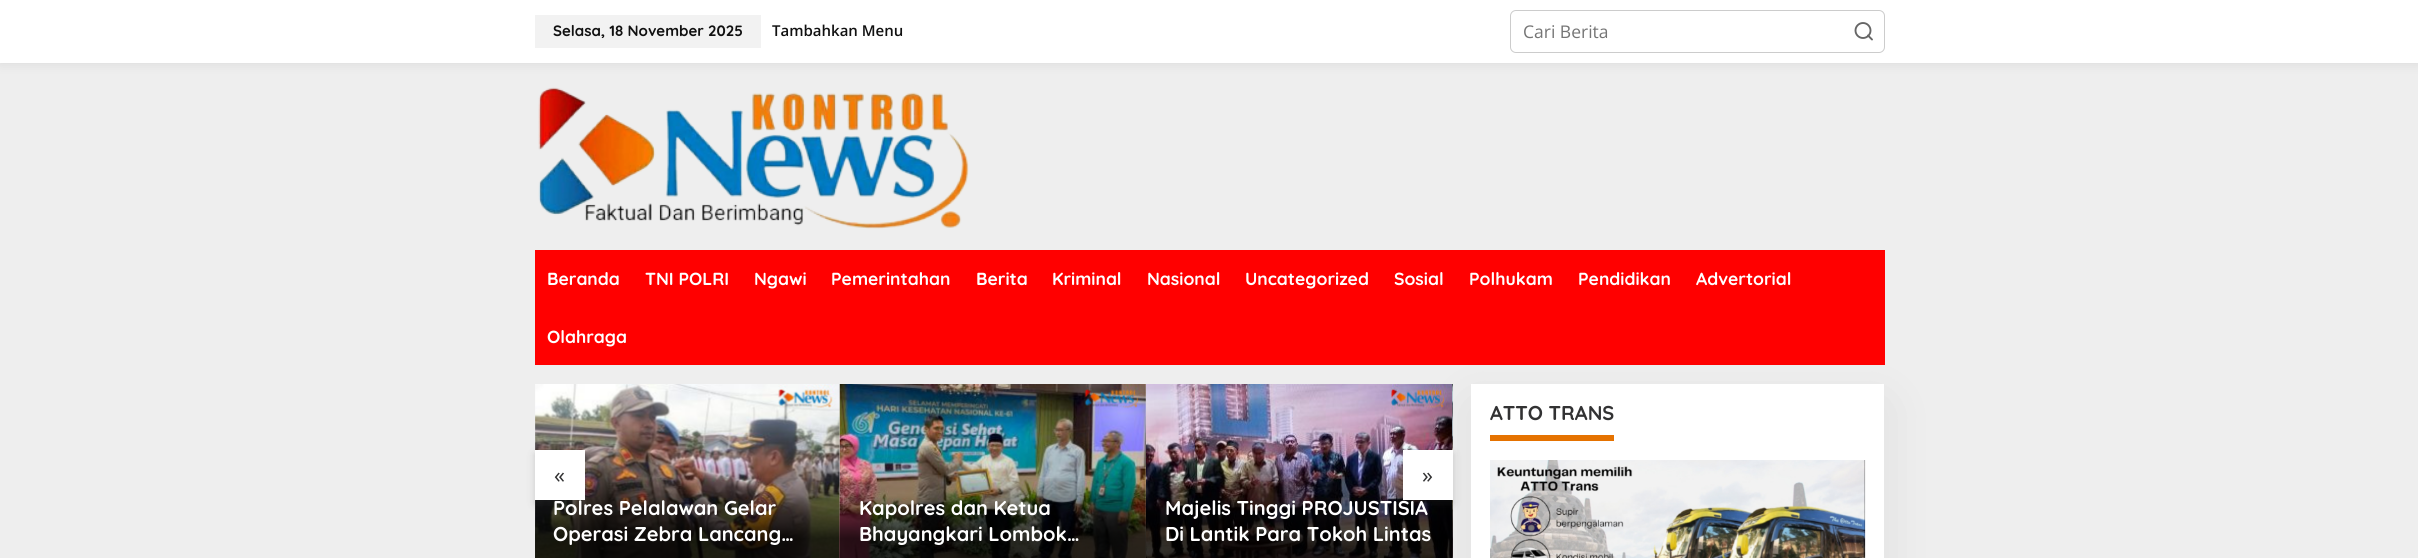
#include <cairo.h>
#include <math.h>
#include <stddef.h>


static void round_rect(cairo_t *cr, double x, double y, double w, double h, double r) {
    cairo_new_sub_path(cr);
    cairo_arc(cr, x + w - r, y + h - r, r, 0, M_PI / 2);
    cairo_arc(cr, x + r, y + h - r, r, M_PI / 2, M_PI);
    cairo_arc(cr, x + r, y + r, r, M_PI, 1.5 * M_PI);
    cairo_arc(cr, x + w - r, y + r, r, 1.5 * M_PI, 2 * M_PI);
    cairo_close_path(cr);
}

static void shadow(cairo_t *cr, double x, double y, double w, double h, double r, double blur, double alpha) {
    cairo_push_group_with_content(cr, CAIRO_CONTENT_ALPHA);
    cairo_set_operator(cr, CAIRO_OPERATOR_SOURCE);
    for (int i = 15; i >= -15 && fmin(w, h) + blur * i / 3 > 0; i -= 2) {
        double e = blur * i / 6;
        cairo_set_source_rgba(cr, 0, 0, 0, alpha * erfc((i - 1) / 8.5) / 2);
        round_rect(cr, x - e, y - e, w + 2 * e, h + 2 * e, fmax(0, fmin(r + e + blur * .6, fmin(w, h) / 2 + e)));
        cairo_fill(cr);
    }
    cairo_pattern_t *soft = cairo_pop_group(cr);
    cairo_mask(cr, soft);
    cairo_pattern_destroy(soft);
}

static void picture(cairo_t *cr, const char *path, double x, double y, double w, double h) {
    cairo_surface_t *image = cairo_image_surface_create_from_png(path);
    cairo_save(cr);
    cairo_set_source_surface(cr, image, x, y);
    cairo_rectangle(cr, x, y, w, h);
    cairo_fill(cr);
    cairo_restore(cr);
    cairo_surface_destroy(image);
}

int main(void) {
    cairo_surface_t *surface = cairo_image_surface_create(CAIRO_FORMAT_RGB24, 2418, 558);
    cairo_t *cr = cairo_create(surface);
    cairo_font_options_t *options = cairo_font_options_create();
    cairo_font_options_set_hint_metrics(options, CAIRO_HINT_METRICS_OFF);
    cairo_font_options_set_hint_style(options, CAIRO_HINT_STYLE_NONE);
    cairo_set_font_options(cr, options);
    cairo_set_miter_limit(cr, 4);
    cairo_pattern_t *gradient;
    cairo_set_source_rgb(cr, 0.933, 0.933, 0.933);
    cairo_paint(cr);
    cairo_set_source_rgb(cr, 0, 0, 0);
    shadow(cr, 0, 0, 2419, 63, 0, 6, 0.1);
    cairo_set_source_rgb(cr, 1, 1, 1);
    cairo_rectangle(cr, 0, 0, 2418, 63);
    cairo_fill(cr);
    cairo_set_source_rgb(cr, 0.949, 0.949, 0.949);
    cairo_rectangle(cr, 535, 15, 226, 33);
    cairo_fill(cr);
    cairo_select_font_face(cr, "Quicksand", CAIRO_FONT_SLANT_NORMAL, CAIRO_FONT_WEIGHT_BOLD);
    cairo_set_font_size(cr, 15);
    cairo_set_source_rgb(cr, 0.067, 0.067, 0.067);
    cairo_move_to(cr, 553, 36);
    cairo_show_text(cr, "Selasa, 18 November 2025");
    cairo_select_font_face(cr, "Open Sans SemiBold", CAIRO_FONT_SLANT_NORMAL, CAIRO_FONT_WEIGHT_NORMAL);
    cairo_move_to(cr, 772, 36);
    cairo_show_text(cr, "Tambahkan Menu");
    round_rect(cr, 1510.5, 10.5, 374, 42, 5.5);
    cairo_set_source_rgb(cr, 0.8, 0.8, 0.8);
    cairo_set_line_width(cr, 1);
    cairo_stroke(cr);
    cairo_select_font_face(cr, "Open Sans", CAIRO_FONT_SLANT_NORMAL, CAIRO_FONT_WEIGHT_NORMAL);
    cairo_set_font_size(cr, 17.5);
    cairo_set_source_rgb(cr, 0.459, 0.459, 0.459);
    cairo_move_to(cr, 1523, 38);
    cairo_show_text(cr, "Cari Berita");
    cairo_new_path(cr);
    cairo_arc(cr, 1863, 30.5, 7.5, 0, 2 * M_PI);
    cairo_set_source_rgb(cr, 0.4, 0.4, 0.4);
    cairo_set_line_width(cr, 1.9);
    cairo_stroke(cr);
    cairo_new_path(cr);
    cairo_move_to(cr, 1872, 39.5);
    cairo_line_to(cr, 1868, 35.5);
    cairo_set_line_cap(cr, CAIRO_LINE_CAP_ROUND);
    cairo_set_line_join(cr, CAIRO_LINE_JOIN_ROUND);
    cairo_stroke(cr);
    picture(cr, "img1.png", 538, 87, 431, 142);
    cairo_set_source_rgb(cr, 1, 0, 0);
    cairo_rectangle(cr, 535, 250, 1350, 115);
    cairo_fill(cr);
    cairo_select_font_face(cr, "Quicksand", CAIRO_FONT_SLANT_NORMAL, CAIRO_FONT_WEIGHT_BOLD);
    cairo_set_source_rgb(cr, 1, 1, 1);
    cairo_move_to(cr, 547, 285);
    cairo_show_text(cr, "Beranda");
    cairo_move_to(cr, 645, 285);
    cairo_show_text(cr, "TNI POLRI");
    cairo_move_to(cr, 754, 285);
    cairo_show_text(cr, "Ngawi");
    cairo_move_to(cr, 831, 285);
    cairo_show_text(cr, "Pemerintahan");
    cairo_move_to(cr, 976, 285);
    cairo_show_text(cr, "Berita");
    cairo_move_to(cr, 1052, 285);
    cairo_show_text(cr, "Kriminal");
    cairo_move_to(cr, 1147, 285);
    cairo_show_text(cr, "Nasional");
    cairo_move_to(cr, 1245, 285);
    cairo_show_text(cr, "Uncategorized");
    cairo_move_to(cr, 1394, 285);
    cairo_show_text(cr, "Sosial");
    cairo_move_to(cr, 1469, 285);
    cairo_show_text(cr, "Polhukam");
    cairo_move_to(cr, 1578, 285);
    cairo_show_text(cr, "Pendidikan");
    cairo_move_to(cr, 1696, 285);
    cairo_show_text(cr, "Advertorial");
    cairo_move_to(cr, 547, 343);
    cairo_show_text(cr, "Olahraga");
    picture(cr, "img5.png", 1146, 384, 307, 174);
    gradient = cairo_pattern_create_linear(1299, 476, 1299, 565);
    cairo_pattern_add_color_stop_rgba(gradient, 0, 0, 0, 0, 0);
    cairo_pattern_add_color_stop_rgba(gradient, 0.7, 0, 0, 0, 0.8);
    cairo_set_source(cr, gradient);
    cairo_pattern_destroy(gradient);
    cairo_rectangle(cr, 1146, 478, 307, 80);
    cairo_fill(cr);
    picture(cr, "img6.png", 1452, 384, 1, 174);
    cairo_set_source_rgb(cr, 0, 0, 0);
    shadow(cr, 1471, 404, 413, 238, 0, 28, 0.07);
    cairo_set_source_rgb(cr, 1, 1, 1);
    cairo_rectangle(cr, 1471, 384, 413, 174);
    cairo_fill(cr);
    cairo_set_source_rgb(cr, 0.898, 0.447, 0);
    cairo_rectangle(cr, 1490, 435, 124, 6);
    cairo_fill(cr);
    cairo_set_font_size(cr, 20);
    cairo_set_source_rgb(cr, 0.196, 0.196, 0.2);
    cairo_move_to(cr, 1490, 420);
    cairo_show_text(cr, "ATTO TRANS");
    picture(cr, "img2.png", 1490, 460, 376, 98);
    picture(cr, "img3.png", 535, 384, 305, 174);
    gradient = cairo_pattern_create_linear(687, 476, 687, 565);
    cairo_pattern_add_color_stop_rgba(gradient, 0, 0, 0, 0, 0);
    cairo_pattern_add_color_stop_rgba(gradient, 0.7, 0, 0, 0, 0.8);
    cairo_set_source(cr, gradient);
    cairo_pattern_destroy(gradient);
    cairo_rectangle(cr, 535, 478, 305, 80);
    cairo_fill(cr);
    cairo_set_source_rgb(cr, 0.2, 0.2, 0.2);
    shadow(cr, 535, 454, 50, 50, 0, 4, 0.2);
    cairo_set_source_rgb(cr, 1, 1, 1);
    cairo_rectangle(cr, 535, 450, 50, 50);
    cairo_fill(cr);
    cairo_select_font_face(cr, "Open Sans", CAIRO_FONT_SLANT_NORMAL, CAIRO_FONT_WEIGHT_NORMAL);
    cairo_set_font_size(cr, 22);
    cairo_set_source_rgb(cr, 0.196, 0.196, 0.2);
    cairo_move_to(cr, 554, 483);
    cairo_show_text(cr, "«");
    cairo_set_source_rgb(cr, 0.2, 0.2, 0.2);
    shadow(cr, 1403, 454, 50, 50, 0, 4, 0.2);
    cairo_set_source_rgb(cr, 1, 1, 1);
    cairo_rectangle(cr, 1403, 450, 50, 50);
    cairo_fill(cr);
    cairo_set_source_rgb(cr, 0.196, 0.196, 0.2);
    cairo_move_to(cr, 1422, 483);
    cairo_show_text(cr, "»");
    cairo_select_font_face(cr, "Quicksand", CAIRO_FONT_SLANT_NORMAL, CAIRO_FONT_WEIGHT_BOLD);
    cairo_set_font_size(cr, 20);
    cairo_set_source_rgb(cr, 1, 1, 1);
    cairo_move_to(cr, 553, 515);
    cairo_show_text(cr, "Polres Pelalawan Gelar");
    cairo_move_to(cr, 553, 541);
    cairo_show_text(cr, "Operasi Zebra Lancang…");
    picture(cr, "img4.png", 839, 384, 307, 174);
    gradient = cairo_pattern_create_linear(993, 476, 993, 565);
    cairo_pattern_add_color_stop_rgba(gradient, 0, 0, 0, 0, 0);
    cairo_pattern_add_color_stop_rgba(gradient, 0.7, 0, 0, 0, 0.8);
    cairo_set_source(cr, gradient);
    cairo_pattern_destroy(gradient);
    cairo_rectangle(cr, 840, 478, 306, 80);
    cairo_fill(cr);
    cairo_set_source_rgb(cr, 1, 1, 1);
    cairo_move_to(cr, 859, 515);
    cairo_show_text(cr, "Kapolres dan Ketua");
    cairo_move_to(cr, 859, 541);
    cairo_show_text(cr, "Bhayangkari Lombok…");
    cairo_move_to(cr, 1165, 515);
    cairo_show_text(cr, "Majelis Tinggi PROJUSTISIA");
    cairo_move_to(cr, 1165, 541);
    cairo_show_text(cr, "Di Lantik Para Tokoh Lintas");
    cairo_surface_write_to_png(surface, "page.png");
    cairo_font_options_destroy(options);
    cairo_destroy(cr);
    cairo_surface_destroy(surface);
    return 0;
}
